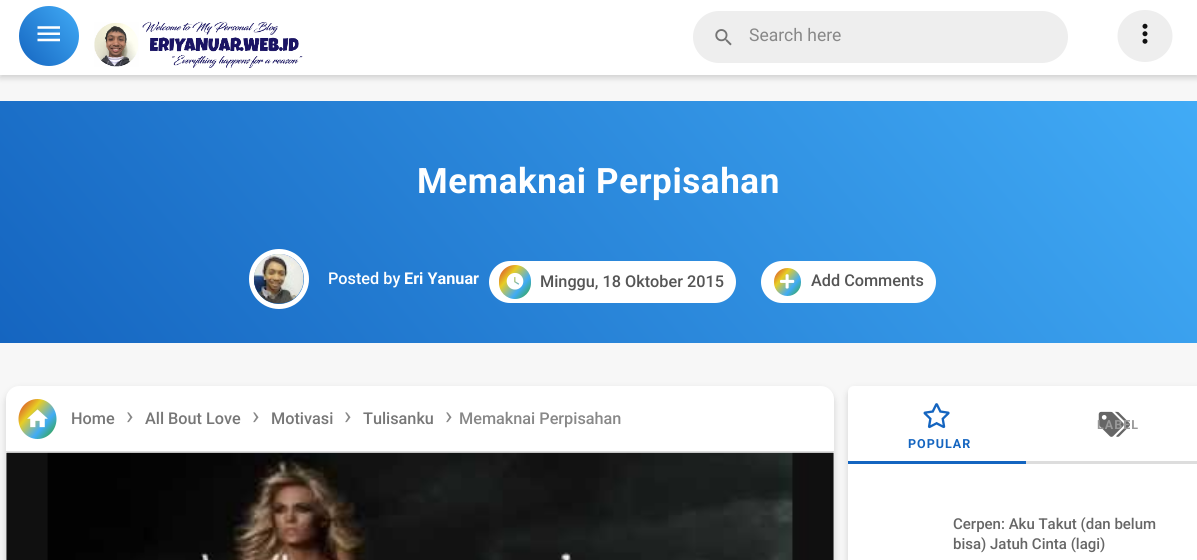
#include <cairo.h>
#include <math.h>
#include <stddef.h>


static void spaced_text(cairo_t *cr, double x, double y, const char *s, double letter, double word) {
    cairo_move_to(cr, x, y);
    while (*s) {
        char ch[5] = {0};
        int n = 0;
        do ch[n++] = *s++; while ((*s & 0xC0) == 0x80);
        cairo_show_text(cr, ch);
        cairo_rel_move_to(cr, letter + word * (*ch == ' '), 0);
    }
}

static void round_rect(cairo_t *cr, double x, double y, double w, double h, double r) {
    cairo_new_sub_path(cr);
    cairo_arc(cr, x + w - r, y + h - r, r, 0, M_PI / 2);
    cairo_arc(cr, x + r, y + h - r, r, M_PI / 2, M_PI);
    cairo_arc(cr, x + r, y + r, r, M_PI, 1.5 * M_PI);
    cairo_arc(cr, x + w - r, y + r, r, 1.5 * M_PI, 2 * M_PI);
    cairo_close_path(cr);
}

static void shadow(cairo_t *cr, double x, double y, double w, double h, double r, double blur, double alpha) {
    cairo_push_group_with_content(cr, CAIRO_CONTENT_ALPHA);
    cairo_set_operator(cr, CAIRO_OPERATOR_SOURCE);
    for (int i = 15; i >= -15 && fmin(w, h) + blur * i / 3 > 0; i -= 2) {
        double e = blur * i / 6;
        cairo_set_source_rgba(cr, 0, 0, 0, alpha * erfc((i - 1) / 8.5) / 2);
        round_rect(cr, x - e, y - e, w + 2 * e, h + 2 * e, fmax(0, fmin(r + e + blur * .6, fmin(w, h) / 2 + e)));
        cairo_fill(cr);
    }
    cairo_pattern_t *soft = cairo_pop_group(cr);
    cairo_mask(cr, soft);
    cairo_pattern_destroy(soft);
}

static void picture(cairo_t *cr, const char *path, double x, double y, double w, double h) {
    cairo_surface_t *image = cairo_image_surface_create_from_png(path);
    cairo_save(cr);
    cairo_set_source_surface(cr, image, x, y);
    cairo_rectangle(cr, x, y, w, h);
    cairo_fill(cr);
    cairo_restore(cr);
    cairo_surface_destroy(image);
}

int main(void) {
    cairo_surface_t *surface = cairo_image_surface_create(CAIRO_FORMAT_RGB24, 1197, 560);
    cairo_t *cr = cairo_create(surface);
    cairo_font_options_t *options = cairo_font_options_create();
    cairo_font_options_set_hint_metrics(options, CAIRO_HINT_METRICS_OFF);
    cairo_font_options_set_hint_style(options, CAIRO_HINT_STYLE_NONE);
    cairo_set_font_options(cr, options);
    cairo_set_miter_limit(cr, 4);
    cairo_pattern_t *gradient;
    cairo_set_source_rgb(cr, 0.965, 0.965, 0.965);
    cairo_paint(cr);
    cairo_set_source_rgb(cr, 0, 0, 0);
    shadow(cr, 0, 3, 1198, 75, 0, 3, 0.16);
    cairo_set_source_rgb(cr, 1, 1, 1);
    cairo_rectangle(cr, 0, 0, 1197, 75);
    cairo_fill(cr);
    gradient = cairo_pattern_create_linear(16, 63, 81, 9);
    cairo_pattern_add_color_stop_rgba(gradient, 0, 0.082, 0.396, 0.753, 1);
    cairo_pattern_add_color_stop_rgba(gradient, 1, 0.255, 0.671, 0.965, 1);
    cairo_set_source(cr, gradient);
    cairo_pattern_destroy(gradient);
    cairo_arc(cr, 49, 36, 30, 0, 2 * M_PI);
    cairo_fill(cr);
    picture(cr, "img1.png", 37, 26, 23, 16);
    picture(cr, "img2.png", 94, 21, 209, 47);
    cairo_set_source_rgb(cr, 0.933, 0.933, 0.933);
    round_rect(cr, 693, 11, 375, 52, 26);
    cairo_fill(cr);
    picture(cr, "img3.png", 715, 29, 17, 17);
    cairo_select_font_face(cr, "Roboto", CAIRO_FONT_SLANT_NORMAL, CAIRO_FONT_WEIGHT_NORMAL);
    cairo_set_font_size(cr, 17.5);
    cairo_set_source_rgb(cr, 0.533, 0.533, 0.533);
    cairo_move_to(cr, 749, 41);
    cairo_show_text(cr, "Search here");
    cairo_set_source_rgb(cr, 0.933, 0.933, 0.933);
    cairo_new_path(cr);
    cairo_move_to(cr, 1145, 10);
    cairo_curve_to(cr, 1160, 10, 1172.5, 21.5, 1172.5, 36);
    cairo_curve_to(cr, 1172.5, 50.5, 1160, 62, 1145, 62);
    cairo_curve_to(cr, 1130, 62, 1117.5, 50.5, 1117.5, 36);
    cairo_curve_to(cr, 1117.5, 21.5, 1130, 10, 1145, 10);
    cairo_close_path(cr);
    cairo_fill(cr);
    picture(cr, "img4.png", 1142, 23, 6, 21);
    gradient = cairo_pattern_create_linear(188, 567, 1010, -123);
    cairo_pattern_add_color_stop_rgba(gradient, 0, 0.082, 0.396, 0.753, 1);
    cairo_pattern_add_color_stop_rgba(gradient, 1, 0.255, 0.671, 0.965, 1);
    cairo_set_source(cr, gradient);
    cairo_pattern_destroy(gradient);
    cairo_rectangle(cr, 0, 101, 1197, 242);
    cairo_fill(cr);
    cairo_select_font_face(cr, "Roboto", CAIRO_FONT_SLANT_NORMAL, CAIRO_FONT_WEIGHT_BOLD);
    cairo_set_font_size(cr, 35);
    cairo_set_source_rgb(cr, 1, 1, 1);
    spaced_text(cr, 417, 193, "Memaknai Perpisahan", 0.6, 0);
    cairo_new_path(cr);
    cairo_arc(cr, 279, 279, 27.5, 0, 2 * M_PI);
    cairo_set_line_width(cr, 5);
    cairo_stroke(cr);
    picture(cr, "img5.png", 253, 254, 51, 50);
    cairo_select_font_face(cr, "Roboto Medium", CAIRO_FONT_SLANT_NORMAL, CAIRO_FONT_WEIGHT_NORMAL);
    cairo_set_font_size(cr, 16.25);
    cairo_move_to(cr, 328, 284);
    cairo_show_text(cr, "Posted by");
    cairo_select_font_face(cr, "Roboto", CAIRO_FONT_SLANT_NORMAL, CAIRO_FONT_WEIGHT_BOLD);
    cairo_move_to(cr, 404, 284);
    cairo_show_text(cr, "Eri Yanuar");
    round_rect(cr, 489, 261, 247, 42, 21);
    cairo_fill(cr);
    gradient = cairo_pattern_create_linear(497, 267, 533, 297);
    cairo_pattern_add_color_stop_rgba(gradient, 0, 0.835, 0.188, 0.188, 1);
    cairo_pattern_add_color_stop_rgba(gradient, 0.33, 0.91, 0.804, 0.141, 1);
    cairo_pattern_add_color_stop_rgba(gradient, 0.67, 0.255, 0.671, 0.965, 1);
    cairo_pattern_add_color_stop_rgba(gradient, 1, 0.204, 0.651, 0.125, 1);
    cairo_set_source(cr, gradient);
    cairo_pattern_destroy(gradient);
    round_rect(cr, 499, 265, 32, 34, 16);
    cairo_fill(cr);
    picture(cr, "img6.png", 506, 272, 18, 18);
    cairo_select_font_face(cr, "Roboto Medium", CAIRO_FONT_SLANT_NORMAL, CAIRO_FONT_WEIGHT_NORMAL);
    cairo_set_source_rgb(cr, 0.333, 0.333, 0.333);
    cairo_move_to(cr, 540, 287);
    cairo_show_text(cr, "Minggu, 18 Oktober 2015");
    cairo_set_source_rgb(cr, 1, 1, 1);
    round_rect(cr, 761, 261, 175, 42, 21);
    cairo_fill(cr);
    gradient = cairo_pattern_create_linear(772, 269, 803, 295);
    cairo_pattern_add_color_stop_rgba(gradient, 0, 0.835, 0.188, 0.188, 1);
    cairo_pattern_add_color_stop_rgba(gradient, 0.33, 0.91, 0.804, 0.141, 1);
    cairo_pattern_add_color_stop_rgba(gradient, 0.67, 0.255, 0.671, 0.965, 1);
    cairo_pattern_add_color_stop_rgba(gradient, 1, 0.204, 0.651, 0.125, 1);
    cairo_set_source(cr, gradient);
    cairo_pattern_destroy(gradient);
    round_rect(cr, 774, 268, 27, 28, 13.5);
    cairo_fill(cr);
    picture(cr, "img7.png", 780, 274, 15, 15);
    cairo_set_source_rgb(cr, 0.333, 0.333, 0.333);
    cairo_move_to(cr, 811, 286);
    cairo_show_text(cr, "Add Comments");
    cairo_set_source_rgb(cr, 0, 0, 0);
    shadow(cr, 848, 389, 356, 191, 6, 4.5, 0.08);
    shadow(cr, 848, 390, 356, 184, 6, 2.5, 0.08);
    cairo_set_source_rgb(cr, 1, 1, 1);
    cairo_new_path(cr);
    cairo_move_to(cr, 854, 386);
    cairo_line_to(cr, 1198, 386);
    cairo_line_to(cr, 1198, 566);
    cairo_line_to(cr, 854, 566);
    cairo_curve_to(cr, 850.5, 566, 848, 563.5, 848, 560);
    cairo_line_to(cr, 848, 392);
    cairo_curve_to(cr, 848, 388.5, 850.5, 386, 854, 386);
    cairo_close_path(cr);
    cairo_fill(cr);
    cairo_set_source_rgb(cr, 0, 0, 0);
    shadow(cr, 6, 389, 828, 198, 13, 4.5, 0.08);
    shadow(cr, 6, 390, 828, 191, 13, 2.5, 0.08);
    cairo_set_source_rgb(cr, 1, 1, 1);
    cairo_new_path(cr);
    cairo_move_to(cr, 19, 386);
    cairo_line_to(cr, 821, 386);
    cairo_curve_to(cr, 828, 386, 834, 392, 834, 399);
    cairo_line_to(cr, 834, 453);
    cairo_line_to(cr, 6, 453);
    cairo_line_to(cr, 6, 399);
    cairo_curve_to(cr, 6, 392, 12, 386, 19, 386);
    cairo_close_path(cr);
    cairo_fill(cr);
    cairo_set_source_rgb(cr, 0.867, 0.867, 0.867);
    cairo_rectangle(cr, 6, 451, 828, 1);
    cairo_fill(cr);
    gradient = cairo_pattern_create_linear(17, 401, 58, 436);
    cairo_pattern_add_color_stop_rgba(gradient, 0, 0.835, 0.188, 0.188, 1);
    cairo_pattern_add_color_stop_rgba(gradient, 0.33, 0.91, 0.804, 0.141, 1);
    cairo_pattern_add_color_stop_rgba(gradient, 0.67, 0.255, 0.671, 0.965, 1);
    cairo_pattern_add_color_stop_rgba(gradient, 1, 0.204, 0.651, 0.125, 1);
    cairo_set_source(cr, gradient);
    cairo_pattern_destroy(gradient);
    cairo_new_path(cr);
    cairo_move_to(cr, 37.5, 399);
    cairo_curve_to(cr, 48, 399, 56.5, 408, 56.5, 419);
    cairo_curve_to(cr, 56.5, 430, 48, 439, 37.5, 439);
    cairo_curve_to(cr, 27, 439, 18.5, 430, 18.5, 419);
    cairo_curve_to(cr, 18.5, 408, 27, 399, 37.5, 399);
    cairo_close_path(cr);
    cairo_fill(cr);
    picture(cr, "img8.png", 27, 409, 21, 19);
    cairo_set_source_rgb(cr, 0.467, 0.467, 0.467);
    cairo_move_to(cr, 71, 424);
    cairo_show_text(cr, "Home");
    cairo_select_font_face(cr, "Roboto", CAIRO_FONT_SLANT_NORMAL, CAIRO_FONT_WEIGHT_NORMAL);
    cairo_set_font_size(cr, 25);
    cairo_set_source_rgb(cr, 0.533, 0.533, 0.533);
    cairo_move_to(cr, 126, 424);
    cairo_show_text(cr, "›");
    cairo_select_font_face(cr, "Roboto Medium", CAIRO_FONT_SLANT_NORMAL, CAIRO_FONT_WEIGHT_NORMAL);
    cairo_set_font_size(cr, 16.25);
    cairo_set_source_rgb(cr, 0.467, 0.467, 0.467);
    cairo_move_to(cr, 145, 424);
    cairo_show_text(cr, "All Bout Love");
    cairo_select_font_face(cr, "Roboto", CAIRO_FONT_SLANT_NORMAL, CAIRO_FONT_WEIGHT_NORMAL);
    cairo_set_font_size(cr, 25);
    cairo_set_source_rgb(cr, 0.533, 0.533, 0.533);
    cairo_move_to(cr, 252, 424);
    cairo_show_text(cr, "›");
    cairo_select_font_face(cr, "Roboto Medium", CAIRO_FONT_SLANT_NORMAL, CAIRO_FONT_WEIGHT_NORMAL);
    cairo_set_font_size(cr, 16.25);
    cairo_set_source_rgb(cr, 0.467, 0.467, 0.467);
    cairo_move_to(cr, 271, 424);
    cairo_show_text(cr, "Motivasi");
    cairo_select_font_face(cr, "Roboto", CAIRO_FONT_SLANT_NORMAL, CAIRO_FONT_WEIGHT_NORMAL);
    cairo_set_font_size(cr, 25);
    cairo_set_source_rgb(cr, 0.533, 0.533, 0.533);
    cairo_move_to(cr, 344, 424);
    cairo_show_text(cr, "›");
    cairo_select_font_face(cr, "Roboto Medium", CAIRO_FONT_SLANT_NORMAL, CAIRO_FONT_WEIGHT_NORMAL);
    cairo_set_font_size(cr, 16.25);
    cairo_set_source_rgb(cr, 0.467, 0.467, 0.467);
    cairo_move_to(cr, 363, 424);
    cairo_show_text(cr, "Tulisanku");
    cairo_select_font_face(cr, "Roboto", CAIRO_FONT_SLANT_NORMAL, CAIRO_FONT_WEIGHT_NORMAL);
    cairo_set_font_size(cr, 25);
    cairo_set_source_rgb(cr, 0.533, 0.533, 0.533);
    cairo_move_to(cr, 445, 424);
    cairo_show_text(cr, "›");
    cairo_select_font_face(cr, "Roboto Medium", CAIRO_FONT_SLANT_NORMAL, CAIRO_FONT_WEIGHT_NORMAL);
    cairo_set_font_size(cr, 16.25);
    cairo_move_to(cr, 459, 424);
    cairo_show_text(cr, "Memaknai Perpisahan");
    cairo_set_source_rgb(cr, 0.933, 0.933, 0.933);
    cairo_rectangle(cr, 6, 453, 828, 107);
    cairo_fill(cr);
    picture(cr, "img9.png", 6, 452, 828, 108);
    cairo_set_source_rgb(cr, 0.867, 0.867, 0.867);
    cairo_rectangle(cr, 1026, 461, 171, 3);
    cairo_fill(cr);
    picture(cr, "img10.png", 1098, 411, 32, 26);
    cairo_select_font_face(cr, "Roboto", CAIRO_FONT_SLANT_NORMAL, CAIRO_FONT_WEIGHT_BOLD);
    cairo_set_font_size(cr, 12.5);
    cairo_set_source_rgb(cr, 0.6, 0.6, 0.6);
    spaced_text(cr, 1097, 429, "LABEL", 1, 0);
    cairo_set_source_rgb(cr, 0.082, 0.396, 0.753);
    cairo_rectangle(cr, 848, 461, 178, 3);
    cairo_fill(cr);
    picture(cr, "img11.png", 923, 403, 27, 26);
    spaced_text(cr, 908, 448, "POPULAR", 1, 0);
    cairo_select_font_face(cr, "Roboto Medium", CAIRO_FONT_SLANT_NORMAL, CAIRO_FONT_WEIGHT_NORMAL);
    cairo_set_font_size(cr, 15);
    cairo_set_source_rgb(cr, 0.4, 0.4, 0.4);
    cairo_move_to(cr, 953, 529);
    cairo_show_text(cr, "Cerpen: Aku Takut (dan belum");
    cairo_move_to(cr, 953, 549);
    cairo_show_text(cr, "bisa) Jatuh Cinta (lagi)");
    cairo_surface_write_to_png(surface, "page.png");
    cairo_font_options_destroy(options);
    cairo_destroy(cr);
    cairo_surface_destroy(surface);
    return 0;
}
